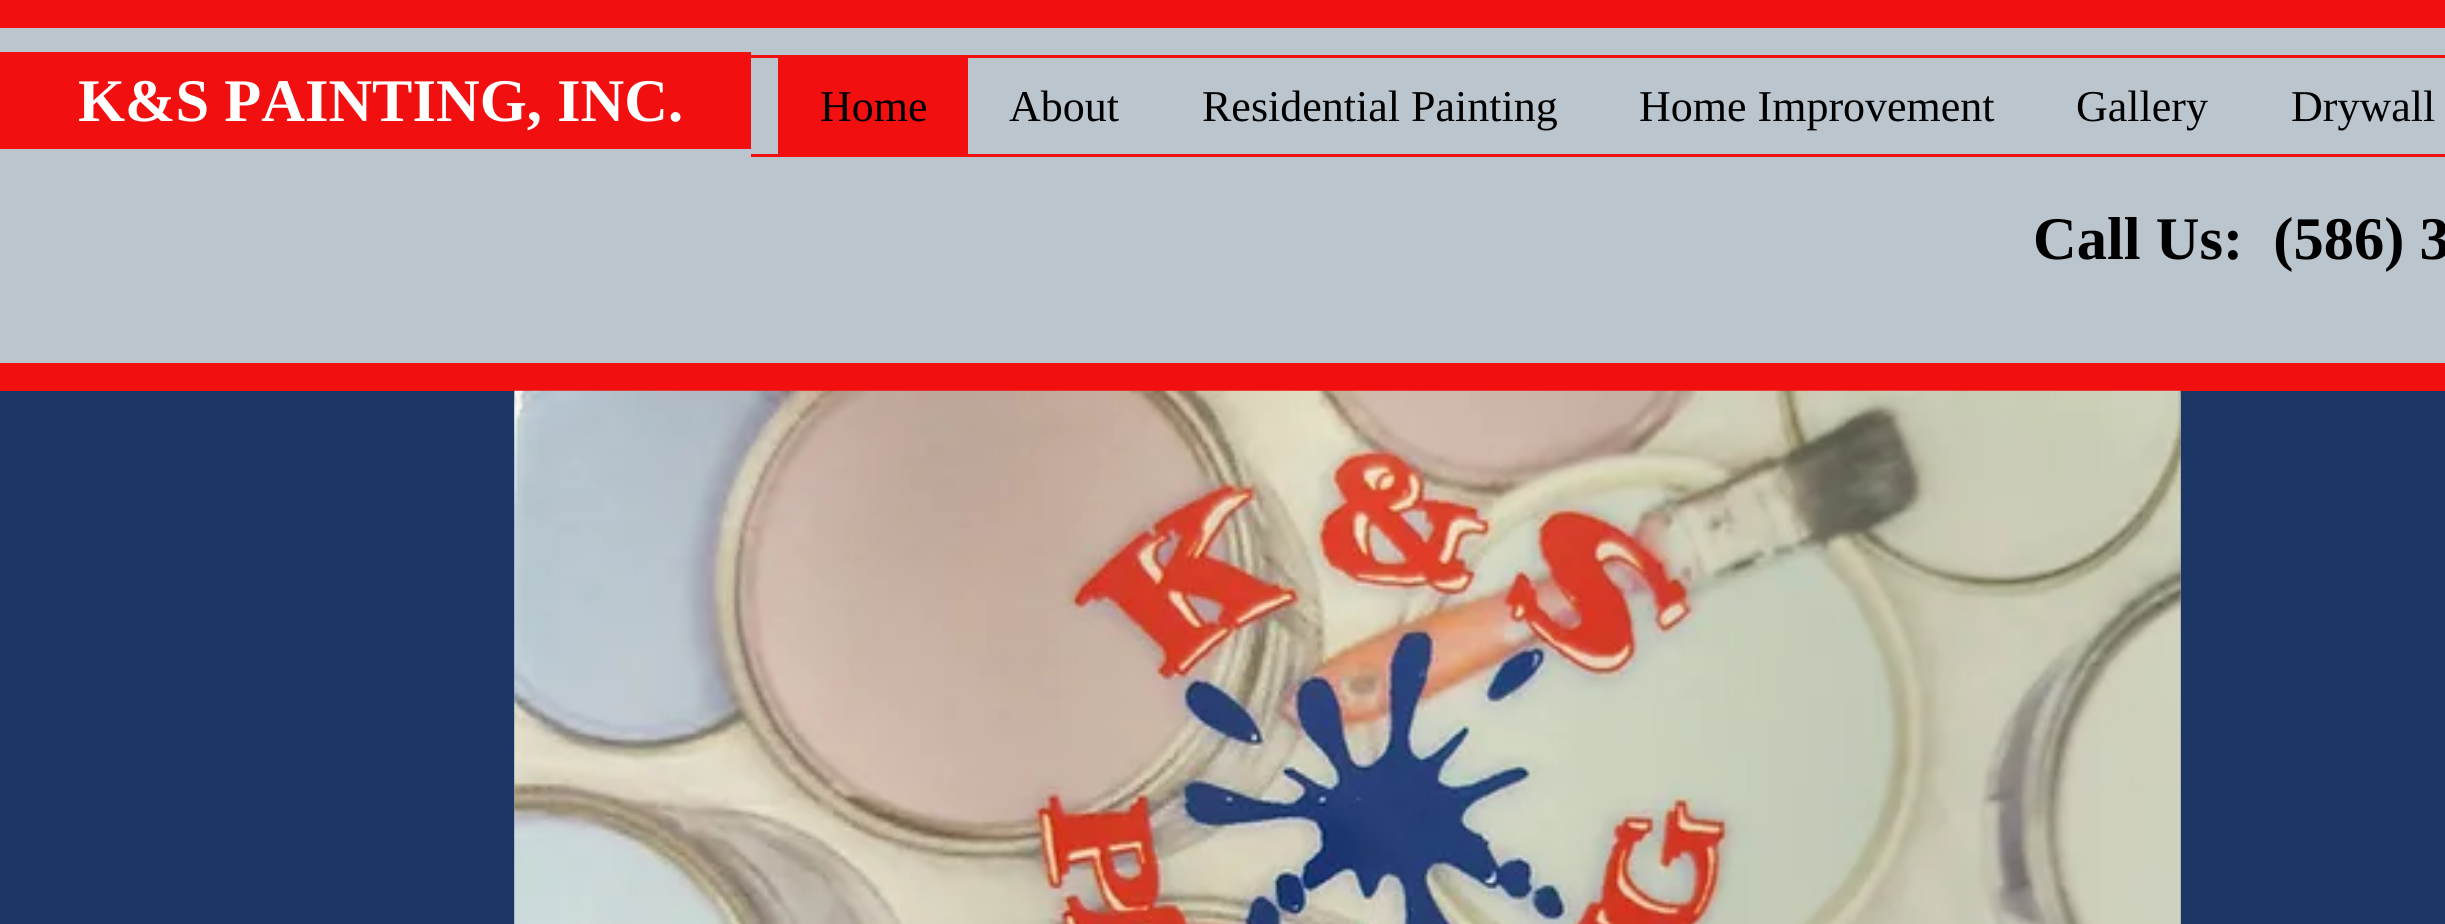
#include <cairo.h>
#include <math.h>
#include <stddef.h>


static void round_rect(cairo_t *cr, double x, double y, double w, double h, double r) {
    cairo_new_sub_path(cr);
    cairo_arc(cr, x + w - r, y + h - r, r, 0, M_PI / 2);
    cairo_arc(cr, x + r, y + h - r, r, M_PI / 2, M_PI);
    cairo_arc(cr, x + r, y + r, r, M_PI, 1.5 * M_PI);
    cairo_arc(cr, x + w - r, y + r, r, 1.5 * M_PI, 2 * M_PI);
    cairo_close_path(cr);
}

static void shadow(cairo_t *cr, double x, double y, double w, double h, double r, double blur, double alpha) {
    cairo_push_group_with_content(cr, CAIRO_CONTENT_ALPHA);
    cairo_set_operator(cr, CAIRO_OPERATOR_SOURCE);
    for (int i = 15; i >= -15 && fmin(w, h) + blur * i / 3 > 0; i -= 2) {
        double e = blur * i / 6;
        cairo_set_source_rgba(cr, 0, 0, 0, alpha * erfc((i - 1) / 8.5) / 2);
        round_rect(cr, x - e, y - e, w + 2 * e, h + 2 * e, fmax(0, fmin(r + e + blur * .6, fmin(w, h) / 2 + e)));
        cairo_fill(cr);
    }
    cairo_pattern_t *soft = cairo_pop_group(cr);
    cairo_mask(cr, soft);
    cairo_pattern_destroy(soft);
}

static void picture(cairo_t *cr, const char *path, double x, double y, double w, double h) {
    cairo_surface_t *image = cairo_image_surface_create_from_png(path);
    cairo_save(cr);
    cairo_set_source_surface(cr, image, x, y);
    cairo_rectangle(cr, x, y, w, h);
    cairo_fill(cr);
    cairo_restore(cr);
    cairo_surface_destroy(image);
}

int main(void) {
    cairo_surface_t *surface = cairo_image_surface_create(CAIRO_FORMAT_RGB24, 2445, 924);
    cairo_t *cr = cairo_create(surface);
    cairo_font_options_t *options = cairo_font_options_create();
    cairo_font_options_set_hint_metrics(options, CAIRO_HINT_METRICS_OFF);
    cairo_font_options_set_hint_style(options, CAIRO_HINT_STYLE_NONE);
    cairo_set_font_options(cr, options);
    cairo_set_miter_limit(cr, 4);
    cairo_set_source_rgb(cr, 0.533, 0.573, 0.631);
    cairo_paint(cr);
    cairo_set_source_rgb(cr, 0, 0, 0);
    shadow(cr, 0, 0, 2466, 391, 0, 7, 0.7);
    cairo_set_source_rgb(cr, 0.729, 0.773, 0.804);
    cairo_rectangle(cr, 0, 28, 2445, 335);
    cairo_fill(cr);
    cairo_set_source_rgb(cr, 0.949, 0.059, 0.059);
    cairo_rectangle(cr, 0, 0, 2445, 28);
    cairo_fill(cr);
    cairo_rectangle(cr, 0, 363, 2445, 28);
    cairo_fill(cr);
    cairo_rectangle(cr, 0, 52, 751, 97);
    cairo_fill(cr);
    cairo_select_font_face(cr, "Liberation Serif", CAIRO_FONT_SLANT_NORMAL, CAIRO_FONT_WEIGHT_BOLD);
    cairo_set_font_size(cr, 60.5);
    cairo_set_source_rgb(cr, 1, 1, 1);
    cairo_move_to(cr, 78, 121);
    cairo_show_text(cr, "K&S PAINTING, INC.");
    cairo_set_source_rgb(cr, 0.949, 0.059, 0.059);
    cairo_rectangle(cr, 751, 55, 1694, 3);
    cairo_fill(cr);
    cairo_rectangle(cr, 751, 154, 1694, 3);
    cairo_fill(cr);
    cairo_rectangle(cr, 778, 58, 190, 96);
    cairo_fill(cr);
    cairo_select_font_face(cr, "Liberation Serif", CAIRO_FONT_SLANT_NORMAL, CAIRO_FONT_WEIGHT_NORMAL);
    cairo_set_font_size(cr, 44);
    cairo_set_source_rgb(cr, 0, 0, 0);
    cairo_move_to(cr, 820, 121);
    cairo_show_text(cr, "Home");
    cairo_move_to(cr, 1009, 121);
    cairo_show_text(cr, "About");
    cairo_move_to(cr, 1202, 121);
    cairo_show_text(cr, "Residential Painting");
    cairo_move_to(cr, 1639, 121);
    cairo_show_text(cr, "Home Improvement");
    cairo_move_to(cr, 2076, 121);
    cairo_show_text(cr, "Gallery");
    cairo_move_to(cr, 2291, 121);
    cairo_show_text(cr, "Drywall");
    cairo_select_font_face(cr, "Liberation Serif", CAIRO_FONT_SLANT_NORMAL, CAIRO_FONT_WEIGHT_BOLD);
    cairo_set_font_size(cr, 60.5);
    cairo_move_to(cr, 2033, 259);
    cairo_show_text(cr, "Call Us:  (586) 3");
    cairo_set_source_rgb(cr, 0.11, 0.216, 0.4);
    cairo_rectangle(cr, 0, 391, 514, 533);
    cairo_fill(cr);
    picture(cr, "img1.png", 514, 390, 1667, 534);
    cairo_rectangle(cr, 2181, 391, 264, 533);
    cairo_fill(cr);
    cairo_surface_write_to_png(surface, "page.png");
    cairo_font_options_destroy(options);
    cairo_destroy(cr);
    cairo_surface_destroy(surface);
    return 0;
}
